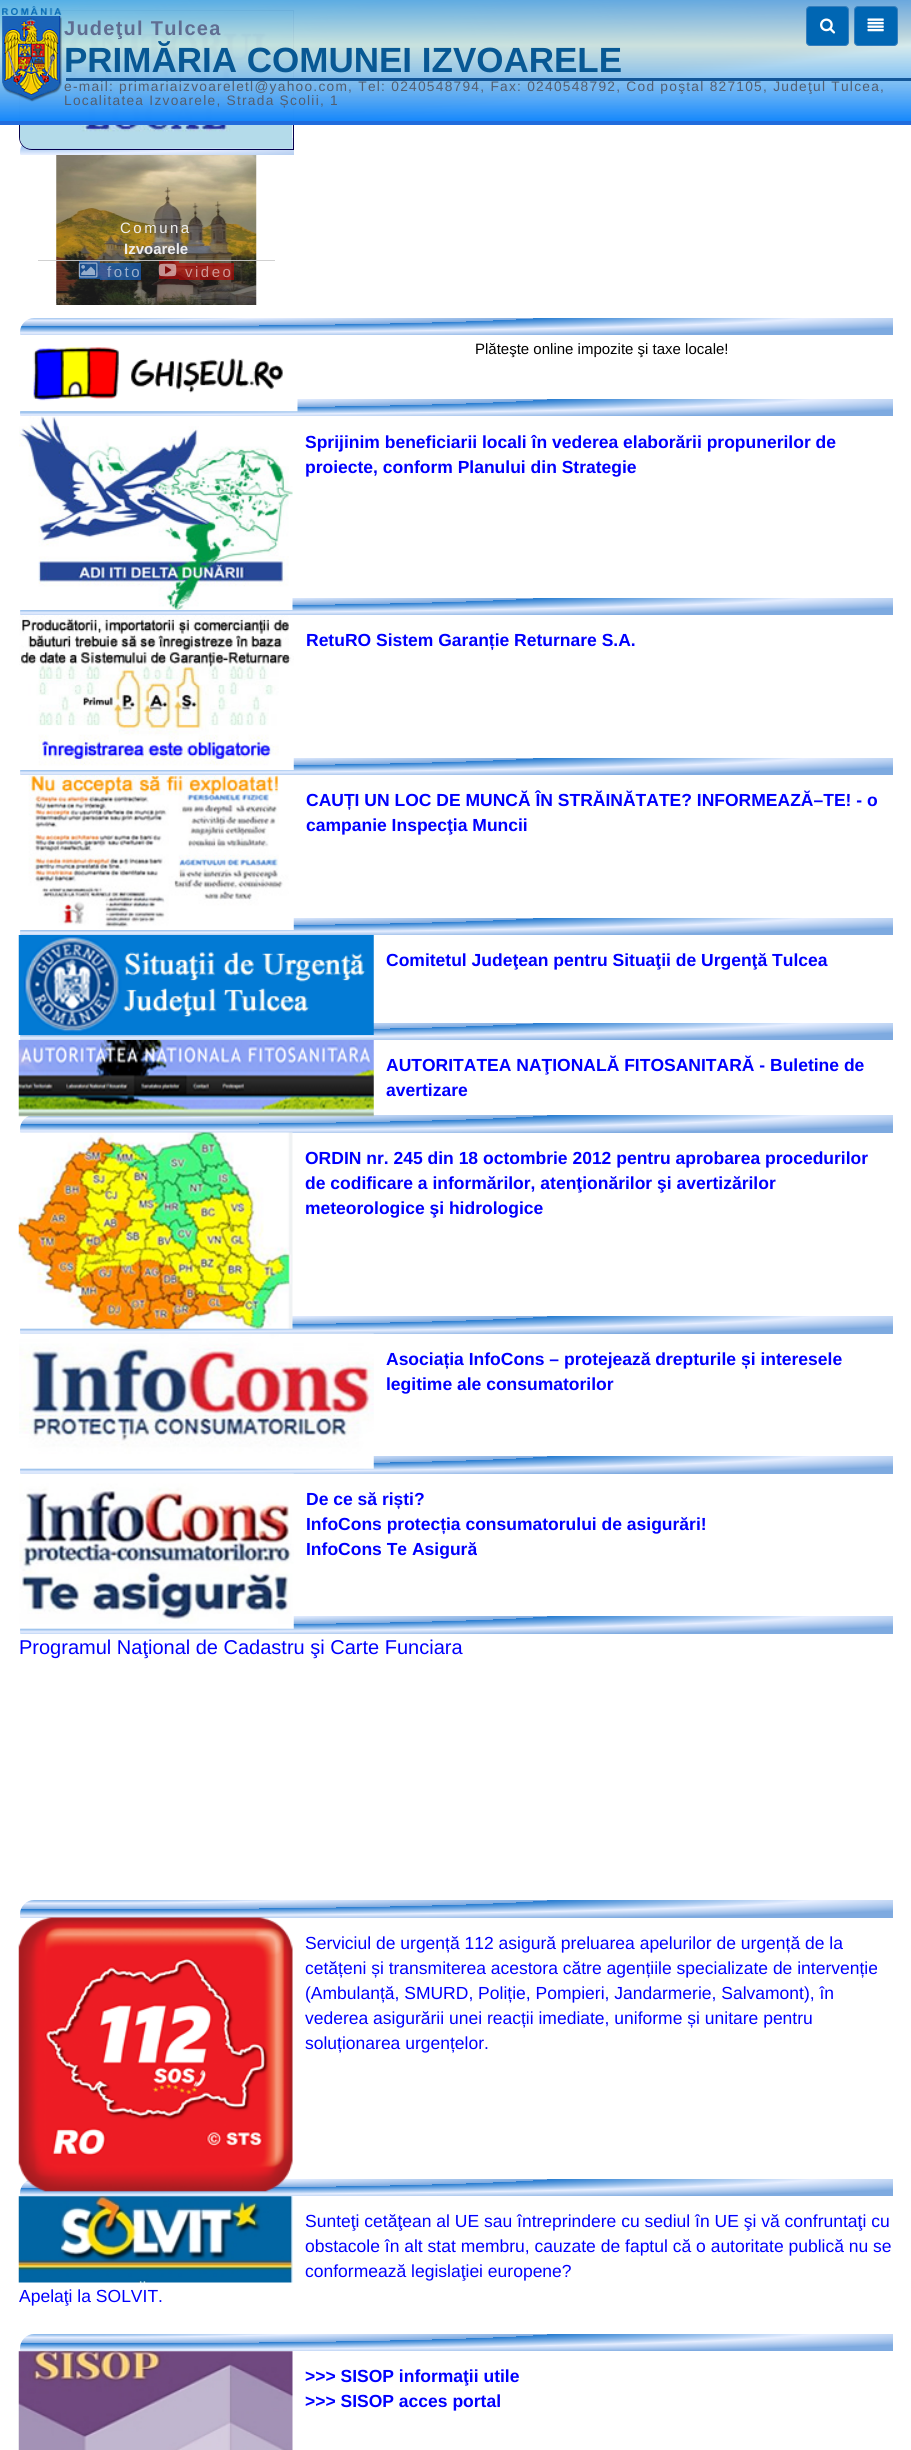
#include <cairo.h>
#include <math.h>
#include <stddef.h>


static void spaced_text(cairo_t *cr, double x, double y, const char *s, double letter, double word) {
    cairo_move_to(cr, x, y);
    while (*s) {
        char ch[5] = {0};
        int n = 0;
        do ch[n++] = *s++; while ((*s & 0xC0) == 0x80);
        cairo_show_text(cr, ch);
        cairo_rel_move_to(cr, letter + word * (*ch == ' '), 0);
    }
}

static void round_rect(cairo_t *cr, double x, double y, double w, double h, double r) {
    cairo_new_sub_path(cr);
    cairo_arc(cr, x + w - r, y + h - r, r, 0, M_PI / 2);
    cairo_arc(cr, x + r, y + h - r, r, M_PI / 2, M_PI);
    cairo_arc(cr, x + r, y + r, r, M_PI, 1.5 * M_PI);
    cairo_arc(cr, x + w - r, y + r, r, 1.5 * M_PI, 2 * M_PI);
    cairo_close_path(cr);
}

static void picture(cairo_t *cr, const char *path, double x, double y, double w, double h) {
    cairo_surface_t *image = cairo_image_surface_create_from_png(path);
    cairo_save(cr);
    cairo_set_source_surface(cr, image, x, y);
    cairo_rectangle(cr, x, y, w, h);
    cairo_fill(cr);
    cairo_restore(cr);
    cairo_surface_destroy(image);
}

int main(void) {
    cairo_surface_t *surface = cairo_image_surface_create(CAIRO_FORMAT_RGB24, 911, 2450);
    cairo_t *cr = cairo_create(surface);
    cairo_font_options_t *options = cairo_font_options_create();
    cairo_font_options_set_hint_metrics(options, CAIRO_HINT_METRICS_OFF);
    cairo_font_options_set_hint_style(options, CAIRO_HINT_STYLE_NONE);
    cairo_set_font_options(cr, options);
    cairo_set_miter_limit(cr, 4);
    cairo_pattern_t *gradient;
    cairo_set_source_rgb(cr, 1, 1, 1);
    cairo_paint(cr);
    gradient = cairo_pattern_create_radial(0, 0, 0, 0, 0, 1);
    cairo_pattern_set_matrix(gradient, &(cairo_matrix_t){1.0 / 503, 0, 0, 1.0 / 40, -1.0 * 34 / 503, -1.0 * 134 / 40});
    cairo_pattern_add_color_stop_rgba(gradient, 0, 0.157, 0.49, 0.82, 1);
    cairo_pattern_add_color_stop_rgba(gradient, 0.51, 0.902, 0.933, 1, 1);
    cairo_pattern_add_color_stop_rgba(gradient, 1, 0.494, 0.667, 0.878, 1);
    cairo_set_source(cr, gradient);
    cairo_pattern_destroy(gradient);
    cairo_new_path(cr);
    cairo_move_to(cr, 34, 138);
    cairo_line_to(cr, 294, 138);
    cairo_line_to(cr, 294, 155);
    cairo_line_to(cr, 21, 155);
    cairo_curve_to(cr, 20.5, 155, 20, 154.5, 20, 154);
    cairo_line_to(cr, 20, 152);
    cairo_curve_to(cr, 20, 144.5, 26.5, 138, 34, 138);
    cairo_close_path(cr);
    cairo_fill(cr);
    cairo_new_path(cr);
    cairo_move_to(cr, 19.5, 10.5);
    cairo_line_to(cr, 293.5, 10.5);
    cairo_line_to(cr, 293.5, 149.5);
    cairo_line_to(cr, 32, 149.5);
    cairo_curve_to(cr, 25, 149.5, 19.5, 144, 19.5, 137);
    cairo_close_path(cr);
    cairo_set_source_rgb(cr, 0.027, 0, 0.31);
    cairo_set_line_width(cr, 1);
    cairo_stroke(cr);
    picture(cr, "img4.png", 20, 11, 273, 138);
    gradient = cairo_pattern_create_linear(438, -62, 473, 183);
    cairo_pattern_add_color_stop_rgba(gradient, 0, 0.063, 0.831, 0.608, 0.9);
    cairo_pattern_add_color_stop_rgba(gradient, 0.65, 0.518, 0.42, 0.094, 0.6);
    cairo_pattern_add_color_stop_rgba(gradient, 0.7, 0.925, 0.941, 0.886, 0.9);
    cairo_pattern_add_color_stop_rgba(gradient, 0.79, 0.69, 0.906, 1, 0.9);
    cairo_set_source(cr, gradient);
    cairo_pattern_destroy(gradient);
    cairo_rectangle(cr, 0, 0, 911, 121);
    cairo_fill(cr);
    gradient = cairo_pattern_create_linear(456, 121, 456, -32);
    cairo_pattern_add_color_stop_rgba(gradient, 0, 0.843, 0.843, 0.875, 0.9);
    cairo_pattern_add_color_stop_rgba(gradient, 1, 0.894, 0.933, 0.949, 0.2);
    cairo_pattern_add_color_stop_rgba(gradient, 1, 0.267, 0.631, 0.478, 0.9);
    cairo_pattern_add_color_stop_rgba(gradient, 1, 0.502, 0.914, 0.376, 0.9);
    cairo_set_source(cr, gradient);
    cairo_pattern_destroy(gradient);
    cairo_rectangle(cr, 0, 0, 911, 121);
    cairo_fill(cr);
    gradient = cairo_pattern_create_linear(456, 121, 456, -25);
    cairo_pattern_add_color_stop_rgba(gradient, 0, 0, 0.498, 1, 0.9);
    cairo_pattern_add_color_stop_rgba(gradient, 0.52, 0.816, 0.922, 0.933, 0.7);
    cairo_pattern_add_color_stop_rgba(gradient, 1, 0, 0.447, 1, 0.7);
    cairo_pattern_add_color_stop_rgba(gradient, 1, 0, 0.698, 1, 0.9);
    cairo_set_source(cr, gradient);
    cairo_pattern_destroy(gradient);
    cairo_rectangle(cr, 0, 0, 911, 121);
    cairo_fill(cr);
    cairo_set_source_rgb(cr, 0.129, 0.424, 0.867);
    cairo_rectangle(cr, 0, 121, 911, 4);
    cairo_fill(cr);
    cairo_set_source_rgb(cr, 0, 0.4, 0.702);
    round_rect(cr, 806.5, 6.5, 42, 39, 3.5);
    cairo_fill_preserve(cr);
    cairo_set_source_rgb(cr, 0.208, 0.494, 0.741);
    cairo_stroke(cr);
    picture(cr, "img1.png", 820, 18, 16, 16);
    cairo_set_source_rgb(cr, 0, 0.4, 0.702);
    round_rect(cr, 854.5, 6.5, 43, 39, 3.5);
    cairo_fill_preserve(cr);
    cairo_set_source_rgb(cr, 0.208, 0.494, 0.741);
    cairo_stroke(cr);
    picture(cr, "img2.png", 867, 18, 17, 14);
    picture(cr, "img3.png", 2, 6, 60, 96);
    cairo_select_font_face(cr, "Liberation Sans", CAIRO_FONT_SLANT_NORMAL, CAIRO_FONT_WEIGHT_BOLD);
    cairo_set_font_size(cr, 20);
    cairo_set_source_rgb(cr, 0.373, 0.427, 0.573);
    spaced_text(cr, 64, 35, "Judeţul Tulcea", 1.25, 0);
    cairo_set_font_size(cr, 35);
    cairo_set_source_rgb(cr, 0.035, 0.345, 0.58);
    cairo_move_to(cr, 64, 72);
    cairo_show_text(cr, "PRIMĂRIA COMUNEI IZVOARELE");
    cairo_set_source_rgb(cr, 0.082, 0.341, 0.6);
    cairo_rectangle(cr, 66, 78, 845, 3);
    cairo_fill(cr);
    cairo_select_font_face(cr, "Liberation Sans", CAIRO_FONT_SLANT_NORMAL, CAIRO_FONT_WEIGHT_NORMAL);
    cairo_set_font_size(cr, 13.75);
    cairo_set_source_rgb(cr, 0.322, 0.369, 0.439);
    spaced_text(cr, 64, 91, "e-mail: primariaizvoareletl@yahoo.com, Tel: 0240548794, Fax: 0240548792, Cod poştal 827105, Judeţul Tulcea,", 1.25, 0);
    spaced_text(cr, 64, 105, "Localitatea Izvoarele, Strada Școlii, 1", 1.25, 0);
    picture(cr, "img5.png", 56, 155, 201, 150);
    cairo_set_font_size(cr, 15);
    cairo_set_source_rgb(cr, 0.929, 0.925, 0.922);
    spaced_text(cr, 120, 233, "Comuna", 2.5, 0);
    cairo_select_font_face(cr, "Liberation Sans", CAIRO_FONT_SLANT_NORMAL, CAIRO_FONT_WEIGHT_BOLD);
    cairo_move_to(cr, 124, 254);
    cairo_show_text(cr, "Izvoarele");
    cairo_set_source_rgba(cr, 0.8, 0.8, 0.8, 0.9);
    cairo_rectangle(cr, 38, 260, 237, 1);
    cairo_fill(cr);
    cairo_set_source_rgba(cr, 0.094, 0.467, 0.949, 0.54);
    cairo_rectangle(cr, 79, 261, 21, 18);
    cairo_fill(cr);
    cairo_rectangle(cr, 100, 263, 41, 17);
    cairo_fill(cr);
    picture(cr, "img6.png", 78, 262, 20, 16);
    cairo_select_font_face(cr, "Liberation Sans", CAIRO_FONT_SLANT_NORMAL, CAIRO_FONT_WEIGHT_NORMAL);
    cairo_set_source_rgb(cr, 0.604, 0.69, 0.8);
    spaced_text(cr, 107, 277, "foto", 2.5, 0);
    cairo_set_source_rgba(cr, 0.835, 0, 0, 0.54);
    cairo_rectangle(cr, 159, 261, 20, 18);
    cairo_fill(cr);
    cairo_rectangle(cr, 179, 263, 55, 17);
    cairo_fill(cr);
    picture(cr, "img7.png", 158, 263, 19, 14);
    cairo_set_source_rgb(cr, 0.812, 0.6, 0.588);
    spaced_text(cr, 185, 277, "video", 2.5, 0);
    gradient = cairo_pattern_create_radial(0, 0, 0, 0, 0, 1);
    cairo_pattern_set_matrix(gradient, &(cairo_matrix_t){1.0 / 1173, 0, 0, 1.0 / 29, -1.0 * 63 / 1173, -1.0 * 314 / 29});
    cairo_pattern_add_color_stop_rgba(gradient, 0, 0.157, 0.49, 0.82, 1);
    cairo_pattern_add_color_stop_rgba(gradient, 0.22, 0.902, 0.933, 1, 1);
    cairo_pattern_add_color_stop_rgba(gradient, 0.43, 0.494, 0.667, 0.878, 1);
    cairo_pattern_add_color_stop_rgba(gradient, 0.43, 0.157, 0.49, 0.82, 1);
    cairo_pattern_add_color_stop_rgba(gradient, 0.65, 0.902, 0.933, 1, 1);
    cairo_pattern_add_color_stop_rgba(gradient, 0.86, 0.494, 0.667, 0.878, 1);
    cairo_set_source(cr, gradient);
    cairo_pattern_destroy(gradient);
    cairo_new_path(cr);
    cairo_move_to(cr, 34, 318);
    cairo_line_to(cr, 893, 318);
    cairo_line_to(cr, 893, 335);
    cairo_line_to(cr, 21, 335);
    cairo_curve_to(cr, 20.5, 335, 20, 334.5, 20, 334);
    cairo_line_to(cr, 20, 332);
    cairo_curve_to(cr, 20, 324.5, 26.5, 318, 34, 318);
    cairo_close_path(cr);
    cairo_fill(cr);
    gradient = cairo_pattern_create_radial(0, 0, 0, 0, 0, 1);
    cairo_pattern_set_matrix(gradient, &(cairo_matrix_t){1.0 / 1173, 0, 0, 1.0 / 29, -1.0 * 63 / 1173, -1.0 * 396 / 29});
    cairo_pattern_add_color_stop_rgba(gradient, 0, 0.157, 0.49, 0.82, 1);
    cairo_pattern_add_color_stop_rgba(gradient, 0.22, 0.902, 0.933, 1, 1);
    cairo_pattern_add_color_stop_rgba(gradient, 0.43, 0.494, 0.667, 0.878, 1);
    cairo_pattern_add_color_stop_rgba(gradient, 0.43, 0.157, 0.49, 0.82, 1);
    cairo_pattern_add_color_stop_rgba(gradient, 0.65, 0.902, 0.933, 1, 1);
    cairo_pattern_add_color_stop_rgba(gradient, 0.86, 0.494, 0.667, 0.878, 1);
    cairo_set_source(cr, gradient);
    cairo_pattern_destroy(gradient);
    cairo_new_path(cr);
    cairo_move_to(cr, 34, 399);
    cairo_line_to(cr, 893, 399);
    cairo_line_to(cr, 893, 416);
    cairo_line_to(cr, 21, 416);
    cairo_curve_to(cr, 20.5, 416, 20, 415.5, 20, 415);
    cairo_line_to(cr, 20, 413);
    cairo_curve_to(cr, 20, 405.5, 26.5, 399, 34, 399);
    cairo_close_path(cr);
    cairo_fill(cr);
    picture(cr, "img8.png", 20, 347, 278, 65);
    cairo_set_source_rgb(cr, 0, 0, 0);
    cairo_move_to(cr, 475, 354);
    cairo_show_text(cr, "Plăteşte online impozite şi taxe locale!");
    gradient = cairo_pattern_create_radial(0, 0, 0, 0, 0, 1);
    cairo_pattern_set_matrix(gradient, &(cairo_matrix_t){1.0 / 1173, 0, 0, 1.0 / 29, -1.0 * 63 / 1173, -1.0 * 594 / 29});
    cairo_pattern_add_color_stop_rgba(gradient, 0, 0.157, 0.49, 0.82, 1);
    cairo_pattern_add_color_stop_rgba(gradient, 0.22, 0.902, 0.933, 1, 1);
    cairo_pattern_add_color_stop_rgba(gradient, 0.43, 0.494, 0.667, 0.878, 1);
    cairo_pattern_add_color_stop_rgba(gradient, 0.43, 0.157, 0.49, 0.82, 1);
    cairo_pattern_add_color_stop_rgba(gradient, 0.65, 0.902, 0.933, 1, 1);
    cairo_pattern_add_color_stop_rgba(gradient, 0.86, 0.494, 0.667, 0.878, 1);
    cairo_set_source(cr, gradient);
    cairo_pattern_destroy(gradient);
    cairo_new_path(cr);
    cairo_move_to(cr, 34, 598);
    cairo_line_to(cr, 893, 598);
    cairo_line_to(cr, 893, 615);
    cairo_line_to(cr, 21, 615);
    cairo_curve_to(cr, 20.5, 615, 20, 614.5, 20, 614);
    cairo_line_to(cr, 20, 612);
    cairo_curve_to(cr, 20, 604.5, 26.5, 598, 34, 598);
    cairo_close_path(cr);
    cairo_fill(cr);
    picture(cr, "img9.png", 19, 416, 274, 194);
    cairo_select_font_face(cr, "Liberation Sans", CAIRO_FONT_SLANT_NORMAL, CAIRO_FONT_WEIGHT_BOLD);
    cairo_set_font_size(cr, 17.5);
    cairo_set_source_rgb(cr, 0, 0, 1);
    cairo_move_to(cr, 305, 448);
    cairo_show_text(cr, "Sprijinim beneficiarii locali în vederea elaborării propunerilor de");
    cairo_move_to(cr, 305, 473);
    cairo_show_text(cr, "proiecte, conform Planului din Strategie");
    gradient = cairo_pattern_create_radial(0, 0, 0, 0, 0, 1);
    cairo_pattern_set_matrix(gradient, &(cairo_matrix_t){1.0 / 1173, 0, 0, 1.0 / 29, -1.0 * 63 / 1173, -1.0 * 754 / 29});
    cairo_pattern_add_color_stop_rgba(gradient, 0, 0.157, 0.49, 0.82, 1);
    cairo_pattern_add_color_stop_rgba(gradient, 0.22, 0.902, 0.933, 1, 1);
    cairo_pattern_add_color_stop_rgba(gradient, 0.43, 0.494, 0.667, 0.878, 1);
    cairo_pattern_add_color_stop_rgba(gradient, 0.43, 0.157, 0.49, 0.82, 1);
    cairo_pattern_add_color_stop_rgba(gradient, 0.65, 0.902, 0.933, 1, 1);
    cairo_pattern_add_color_stop_rgba(gradient, 0.86, 0.494, 0.667, 0.878, 1);
    cairo_set_source(cr, gradient);
    cairo_pattern_destroy(gradient);
    cairo_new_path(cr);
    cairo_move_to(cr, 34, 758);
    cairo_line_to(cr, 893, 758);
    cairo_line_to(cr, 893, 775);
    cairo_line_to(cr, 21, 775);
    cairo_curve_to(cr, 20.5, 775, 20, 774.5, 20, 774);
    cairo_line_to(cr, 20, 772);
    cairo_curve_to(cr, 20, 764.5, 26.5, 758, 34, 758);
    cairo_close_path(cr);
    cairo_fill(cr);
    picture(cr, "img10.png", 19, 615, 275, 155);
    cairo_set_source_rgb(cr, 0, 0, 1);
    cairo_move_to(cr, 306, 646);
    cairo_show_text(cr, "RetuRO Sistem Garanție Returnare S.A.");
    gradient = cairo_pattern_create_radial(0, 0, 0, 0, 0, 1);
    cairo_pattern_set_matrix(gradient, &(cairo_matrix_t){1.0 / 1173, 0, 0, 1.0 / 29, -1.0 * 63 / 1173, -1.0 * 914 / 29});
    cairo_pattern_add_color_stop_rgba(gradient, 0, 0.157, 0.49, 0.82, 1);
    cairo_pattern_add_color_stop_rgba(gradient, 0.22, 0.902, 0.933, 1, 1);
    cairo_pattern_add_color_stop_rgba(gradient, 0.43, 0.494, 0.667, 0.878, 1);
    cairo_pattern_add_color_stop_rgba(gradient, 0.43, 0.157, 0.49, 0.82, 1);
    cairo_pattern_add_color_stop_rgba(gradient, 0.65, 0.902, 0.933, 1, 1);
    cairo_pattern_add_color_stop_rgba(gradient, 0.86, 0.494, 0.667, 0.878, 1);
    cairo_set_source(cr, gradient);
    cairo_pattern_destroy(gradient);
    cairo_new_path(cr);
    cairo_move_to(cr, 34, 918);
    cairo_line_to(cr, 893, 918);
    cairo_line_to(cr, 893, 935);
    cairo_line_to(cr, 21, 935);
    cairo_curve_to(cr, 20.5, 935, 20, 934.5, 20, 934);
    cairo_line_to(cr, 20, 932);
    cairo_curve_to(cr, 20, 924.5, 26.5, 918, 34, 918);
    cairo_close_path(cr);
    cairo_fill(cr);
    picture(cr, "img11.png", 20, 775, 274, 155);
    cairo_set_source_rgb(cr, 0, 0, 1);
    cairo_move_to(cr, 306, 806);
    cairo_show_text(cr, "CAUȚI UN LOC DE MUNCĂ ÎN STRĂINĂTATE? INFORMEAZĂ–TE! - o");
    cairo_move_to(cr, 306, 831);
    cairo_show_text(cr, "campanie Inspecţia Muncii");
    gradient = cairo_pattern_create_radial(0, 0, 0, 0, 0, 1);
    cairo_pattern_set_matrix(gradient, &(cairo_matrix_t){1.0 / 1173, 0, 0, 1.0 / 29, -1.0 * 63 / 1173, -1.0 * 1019 / 29});
    cairo_pattern_add_color_stop_rgba(gradient, 0, 0.157, 0.49, 0.82, 1);
    cairo_pattern_add_color_stop_rgba(gradient, 0.22, 0.902, 0.933, 1, 1);
    cairo_pattern_add_color_stop_rgba(gradient, 0.43, 0.494, 0.667, 0.878, 1);
    cairo_pattern_add_color_stop_rgba(gradient, 0.43, 0.157, 0.49, 0.82, 1);
    cairo_pattern_add_color_stop_rgba(gradient, 0.65, 0.902, 0.933, 1, 1);
    cairo_pattern_add_color_stop_rgba(gradient, 0.86, 0.494, 0.667, 0.878, 1);
    cairo_set_source(cr, gradient);
    cairo_pattern_destroy(gradient);
    cairo_new_path(cr);
    cairo_move_to(cr, 34, 1023);
    cairo_line_to(cr, 893, 1023);
    cairo_line_to(cr, 893, 1040);
    cairo_line_to(cr, 21, 1040);
    cairo_curve_to(cr, 20.5, 1040, 20, 1039.5, 20, 1039);
    cairo_line_to(cr, 20, 1037);
    cairo_curve_to(cr, 20, 1029.5, 26.5, 1023, 34, 1023);
    cairo_close_path(cr);
    cairo_fill(cr);
    picture(cr, "img12.png", 18, 935, 356, 100);
    cairo_set_source_rgb(cr, 0, 0, 1);
    cairo_move_to(cr, 386, 966);
    cairo_show_text(cr, "Comitetul Judeţean pentru Situaţii de Urgenţă Tulcea");
    gradient = cairo_pattern_create_radial(0, 0, 0, 0, 0, 1);
    cairo_pattern_set_matrix(gradient, &(cairo_matrix_t){1.0 / 1173, 0, 0, 1.0 / 29, -1.0 * 63 / 1173, -1.0 * 1112 / 29});
    cairo_pattern_add_color_stop_rgba(gradient, 0, 0.157, 0.49, 0.82, 1);
    cairo_pattern_add_color_stop_rgba(gradient, 0.22, 0.902, 0.933, 1, 1);
    cairo_pattern_add_color_stop_rgba(gradient, 0.43, 0.494, 0.667, 0.878, 1);
    cairo_pattern_add_color_stop_rgba(gradient, 0.43, 0.157, 0.49, 0.82, 1);
    cairo_pattern_add_color_stop_rgba(gradient, 0.65, 0.902, 0.933, 1, 1);
    cairo_pattern_add_color_stop_rgba(gradient, 0.86, 0.494, 0.667, 0.878, 1);
    cairo_set_source(cr, gradient);
    cairo_pattern_destroy(gradient);
    cairo_new_path(cr);
    cairo_move_to(cr, 34, 1115);
    cairo_line_to(cr, 893, 1115);
    cairo_line_to(cr, 893, 1133);
    cairo_line_to(cr, 21, 1133);
    cairo_curve_to(cr, 20.5, 1133, 20, 1132.5, 20, 1132);
    cairo_line_to(cr, 20, 1129);
    cairo_curve_to(cr, 20, 1121.5, 26.5, 1115, 34, 1115);
    cairo_close_path(cr);
    cairo_fill(cr);
    picture(cr, "img13.png", 18, 1040, 356, 77);
    cairo_set_source_rgb(cr, 0, 0, 1);
    cairo_move_to(cr, 386, 1071);
    cairo_show_text(cr, "AUTORITATEA NAŢIONALĂ FITOSANITARĂ - Buletine de");
    cairo_move_to(cr, 386, 1096);
    cairo_show_text(cr, "avertizare");
    gradient = cairo_pattern_create_radial(0, 0, 0, 0, 0, 1);
    cairo_pattern_set_matrix(gradient, &(cairo_matrix_t){1.0 / 1173, 0, 0, 1.0 / 29, -1.0 * 63 / 1173, -1.0 * 1313 / 29});
    cairo_pattern_add_color_stop_rgba(gradient, 0, 0.157, 0.49, 0.82, 1);
    cairo_pattern_add_color_stop_rgba(gradient, 0.22, 0.902, 0.933, 1, 1);
    cairo_pattern_add_color_stop_rgba(gradient, 0.43, 0.494, 0.667, 0.878, 1);
    cairo_pattern_add_color_stop_rgba(gradient, 0.43, 0.157, 0.49, 0.82, 1);
    cairo_pattern_add_color_stop_rgba(gradient, 0.65, 0.902, 0.933, 1, 1);
    cairo_pattern_add_color_stop_rgba(gradient, 0.86, 0.494, 0.667, 0.878, 1);
    cairo_set_source(cr, gradient);
    cairo_pattern_destroy(gradient);
    cairo_new_path(cr);
    cairo_move_to(cr, 34, 1316);
    cairo_line_to(cr, 893, 1316);
    cairo_line_to(cr, 893, 1334);
    cairo_line_to(cr, 21, 1334);
    cairo_curve_to(cr, 20.5, 1334, 20, 1333.5, 20, 1333);
    cairo_line_to(cr, 20, 1330);
    cairo_curve_to(cr, 20, 1322.5, 26.5, 1316, 34, 1316);
    cairo_close_path(cr);
    cairo_fill(cr);
    picture(cr, "img14.png", 18, 1132, 275, 197);
    cairo_set_source_rgb(cr, 0, 0, 1);
    cairo_move_to(cr, 305, 1164);
    cairo_show_text(cr, "ORDIN nr. 245 din 18 octombrie 2012 pentru aprobarea procedurilor");
    cairo_move_to(cr, 305, 1189);
    cairo_show_text(cr, "de codificare a informărilor, atenţionărilor şi avertizărilor");
    cairo_move_to(cr, 305, 1214);
    cairo_show_text(cr, "meteorologice şi hidrologice");
    gradient = cairo_pattern_create_radial(0, 0, 0, 0, 0, 1);
    cairo_pattern_set_matrix(gradient, &(cairo_matrix_t){1.0 / 1173, 0, 0, 1.0 / 29, -1.0 * 63 / 1173, -1.0 * 1453 / 29});
    cairo_pattern_add_color_stop_rgba(gradient, 0, 0.157, 0.49, 0.82, 1);
    cairo_pattern_add_color_stop_rgba(gradient, 0.22, 0.902, 0.933, 1, 1);
    cairo_pattern_add_color_stop_rgba(gradient, 0.43, 0.494, 0.667, 0.878, 1);
    cairo_pattern_add_color_stop_rgba(gradient, 0.43, 0.157, 0.49, 0.82, 1);
    cairo_pattern_add_color_stop_rgba(gradient, 0.65, 0.902, 0.933, 1, 1);
    cairo_pattern_add_color_stop_rgba(gradient, 0.86, 0.494, 0.667, 0.878, 1);
    cairo_set_source(cr, gradient);
    cairo_pattern_destroy(gradient);
    cairo_new_path(cr);
    cairo_move_to(cr, 34, 1456);
    cairo_line_to(cr, 893, 1456);
    cairo_line_to(cr, 893, 1474);
    cairo_line_to(cr, 21, 1474);
    cairo_curve_to(cr, 20.5, 1474, 20, 1473.5, 20, 1473);
    cairo_line_to(cr, 20, 1470);
    cairo_curve_to(cr, 20, 1462.5, 26.5, 1456, 34, 1456);
    cairo_close_path(cr);
    cairo_fill(cr);
    picture(cr, "img15.png", 19, 1333, 355, 136);
    cairo_set_source_rgb(cr, 0, 0, 1);
    cairo_move_to(cr, 386, 1365);
    cairo_show_text(cr, "Asociația InfoCons – protejează drepturile și interesele");
    cairo_move_to(cr, 386, 1390);
    cairo_show_text(cr, "legitime ale consumatorilor");
    gradient = cairo_pattern_create_radial(0, 0, 0, 0, 0, 1);
    cairo_pattern_set_matrix(gradient, &(cairo_matrix_t){1.0 / 1173, 0, 0, 1.0 / 29, -1.0 * 63 / 1173, -1.0 * 1613 / 29});
    cairo_pattern_add_color_stop_rgba(gradient, 0, 0.157, 0.49, 0.82, 1);
    cairo_pattern_add_color_stop_rgba(gradient, 0.22, 0.902, 0.933, 1, 1);
    cairo_pattern_add_color_stop_rgba(gradient, 0.43, 0.494, 0.667, 0.878, 1);
    cairo_pattern_add_color_stop_rgba(gradient, 0.43, 0.157, 0.49, 0.82, 1);
    cairo_pattern_add_color_stop_rgba(gradient, 0.65, 0.902, 0.933, 1, 1);
    cairo_pattern_add_color_stop_rgba(gradient, 0.86, 0.494, 0.667, 0.878, 1);
    cairo_set_source(cr, gradient);
    cairo_pattern_destroy(gradient);
    cairo_new_path(cr);
    cairo_move_to(cr, 34, 1616);
    cairo_line_to(cr, 893, 1616);
    cairo_line_to(cr, 893, 1634);
    cairo_line_to(cr, 21, 1634);
    cairo_curve_to(cr, 20.5, 1634, 20, 1633.5, 20, 1633);
    cairo_line_to(cr, 20, 1630);
    cairo_curve_to(cr, 20, 1622.5, 26.5, 1616, 34, 1616);
    cairo_close_path(cr);
    cairo_fill(cr);
    picture(cr, "img16.png", 19, 1473, 275, 156);
    cairo_set_source_rgb(cr, 0, 0, 1);
    cairo_move_to(cr, 306, 1505);
    cairo_show_text(cr, "De ce să riști?");
    cairo_move_to(cr, 306, 1530);
    cairo_show_text(cr, "InfoCons protecția consumatorului de asigurări!");
    cairo_move_to(cr, 306, 1555);
    cairo_show_text(cr, "InfoCons Te Asigură");
    cairo_select_font_face(cr, "Liberation Sans", CAIRO_FONT_SLANT_NORMAL, CAIRO_FONT_WEIGHT_NORMAL);
    cairo_set_font_size(cr, 20);
    cairo_move_to(cr, 19, 1654);
    cairo_show_text(cr, "Programul Naţional de Cadastru şi Carte Funciara");
    gradient = cairo_pattern_create_radial(0, 0, 0, 0, 0, 1);
    cairo_pattern_set_matrix(gradient, &(cairo_matrix_t){1.0 / 1173, 0, 0, 1.0 / 29, -1.0 * 63 / 1173, -1.0 * 1897 / 29});
    cairo_pattern_add_color_stop_rgba(gradient, 0, 0.157, 0.49, 0.82, 1);
    cairo_pattern_add_color_stop_rgba(gradient, 0.22, 0.902, 0.933, 1, 1);
    cairo_pattern_add_color_stop_rgba(gradient, 0.43, 0.494, 0.667, 0.878, 1);
    cairo_pattern_add_color_stop_rgba(gradient, 0.43, 0.157, 0.49, 0.82, 1);
    cairo_pattern_add_color_stop_rgba(gradient, 0.65, 0.902, 0.933, 1, 1);
    cairo_pattern_add_color_stop_rgba(gradient, 0.86, 0.494, 0.667, 0.878, 1);
    cairo_set_source(cr, gradient);
    cairo_pattern_destroy(gradient);
    cairo_new_path(cr);
    cairo_move_to(cr, 34, 1900);
    cairo_line_to(cr, 893, 1900);
    cairo_line_to(cr, 893, 1918);
    cairo_line_to(cr, 21, 1918);
    cairo_curve_to(cr, 20.5, 1918, 20, 1917.5, 20, 1917);
    cairo_line_to(cr, 20, 1914);
    cairo_curve_to(cr, 20, 1906.5, 26.5, 1900, 34, 1900);
    cairo_close_path(cr);
    cairo_fill(cr);
    gradient = cairo_pattern_create_radial(0, 0, 0, 0, 0, 1);
    cairo_pattern_set_matrix(gradient, &(cairo_matrix_t){1.0 / 1173, 0, 0, 1.0 / 29, -1.0 * 63 / 1173, -1.0 * 2176 / 29});
    cairo_pattern_add_color_stop_rgba(gradient, 0, 0.157, 0.49, 0.82, 1);
    cairo_pattern_add_color_stop_rgba(gradient, 0.22, 0.902, 0.933, 1, 1);
    cairo_pattern_add_color_stop_rgba(gradient, 0.43, 0.494, 0.667, 0.878, 1);
    cairo_pattern_add_color_stop_rgba(gradient, 0.43, 0.157, 0.49, 0.82, 1);
    cairo_pattern_add_color_stop_rgba(gradient, 0.65, 0.902, 0.933, 1, 1);
    cairo_pattern_add_color_stop_rgba(gradient, 0.86, 0.494, 0.667, 0.878, 1);
    cairo_set_source(cr, gradient);
    cairo_pattern_destroy(gradient);
    cairo_new_path(cr);
    cairo_move_to(cr, 34, 2179);
    cairo_line_to(cr, 893, 2179);
    cairo_line_to(cr, 893, 2196);
    cairo_line_to(cr, 21, 2196);
    cairo_curve_to(cr, 20.5, 2196, 20, 2195.5, 20, 2195);
    cairo_line_to(cr, 20, 2193);
    cairo_curve_to(cr, 20, 2185.5, 26.5, 2179, 34, 2179);
    cairo_close_path(cr);
    cairo_fill(cr);
    picture(cr, "img17.png", 18, 1917, 275, 275);
    cairo_set_font_size(cr, 17.5);
    cairo_set_source_rgb(cr, 0, 0, 1);
    cairo_move_to(cr, 305, 1949);
    cairo_show_text(cr, "Serviciul de urgență 112 asigură preluarea apelurilor de urgență de la");
    cairo_move_to(cr, 305, 1974);
    cairo_show_text(cr, "cetățeni și transmiterea acestora către agențiile specializate de intervenție");
    cairo_move_to(cr, 305, 1999);
    cairo_show_text(cr, "(Ambulanță, SMURD, Poliție, Pompieri, Jandarmerie, Salvamont), în");
    cairo_move_to(cr, 305, 2024);
    cairo_show_text(cr, "vederea asigurării unei reacții imediate, uniforme și unitare pentru");
    cairo_move_to(cr, 305, 2049);
    cairo_show_text(cr, "soluționarea urgențelor.");
    picture(cr, "img18.png", 18, 2196, 275, 87);
    cairo_move_to(cr, 305, 2227);
    cairo_show_text(cr, "Sunteţi cetăţean al UE sau întreprindere cu sediul în UE şi vă confruntaţi cu");
    cairo_move_to(cr, 305, 2252);
    cairo_show_text(cr, "obstacole în alt stat membru, cauzate de faptul că o autoritate publică nu se");
    cairo_move_to(cr, 305, 2277);
    cairo_show_text(cr, "conformează legislaţiei europene?");
    cairo_move_to(cr, 19, 2302);
    cairo_show_text(cr, "Apelaţi la SOLVIT.");
    gradient = cairo_pattern_create_radial(0, 0, 0, 0, 0, 1);
    cairo_pattern_set_matrix(gradient, &(cairo_matrix_t){1.0 / 1173, 0, 0, 1.0 / 29, -1.0 * 63 / 1173, -1.0 * 2331 / 29});
    cairo_pattern_add_color_stop_rgba(gradient, 0, 0.157, 0.49, 0.82, 1);
    cairo_pattern_add_color_stop_rgba(gradient, 0.22, 0.902, 0.933, 1, 1);
    cairo_pattern_add_color_stop_rgba(gradient, 0.43, 0.494, 0.667, 0.878, 1);
    cairo_pattern_add_color_stop_rgba(gradient, 0.43, 0.157, 0.49, 0.82, 1);
    cairo_pattern_add_color_stop_rgba(gradient, 0.65, 0.902, 0.933, 1, 1);
    cairo_pattern_add_color_stop_rgba(gradient, 0.86, 0.494, 0.667, 0.878, 1);
    cairo_set_source(cr, gradient);
    cairo_pattern_destroy(gradient);
    cairo_new_path(cr);
    cairo_move_to(cr, 34, 2334);
    cairo_line_to(cr, 893, 2334);
    cairo_line_to(cr, 893, 2351);
    cairo_line_to(cr, 21, 2351);
    cairo_curve_to(cr, 20.5, 2351, 20, 2350.5, 20, 2350);
    cairo_line_to(cr, 20, 2348);
    cairo_curve_to(cr, 20, 2340.5, 26.5, 2334, 34, 2334);
    cairo_close_path(cr);
    cairo_fill(cr);
    picture(cr, "img19.png", 18, 2351, 275, 99);
    cairo_select_font_face(cr, "Liberation Sans", CAIRO_FONT_SLANT_NORMAL, CAIRO_FONT_WEIGHT_BOLD);
    cairo_set_source_rgb(cr, 0, 0, 1);
    cairo_move_to(cr, 305, 2382);
    cairo_show_text(cr, ">>> SISOP informaţii utile");
    cairo_move_to(cr, 305, 2407);
    cairo_show_text(cr, ">>> SISOP acces portal");
    cairo_surface_write_to_png(surface, "page.png");
    cairo_font_options_destroy(options);
    cairo_destroy(cr);
    cairo_surface_destroy(surface);
    return 0;
}
